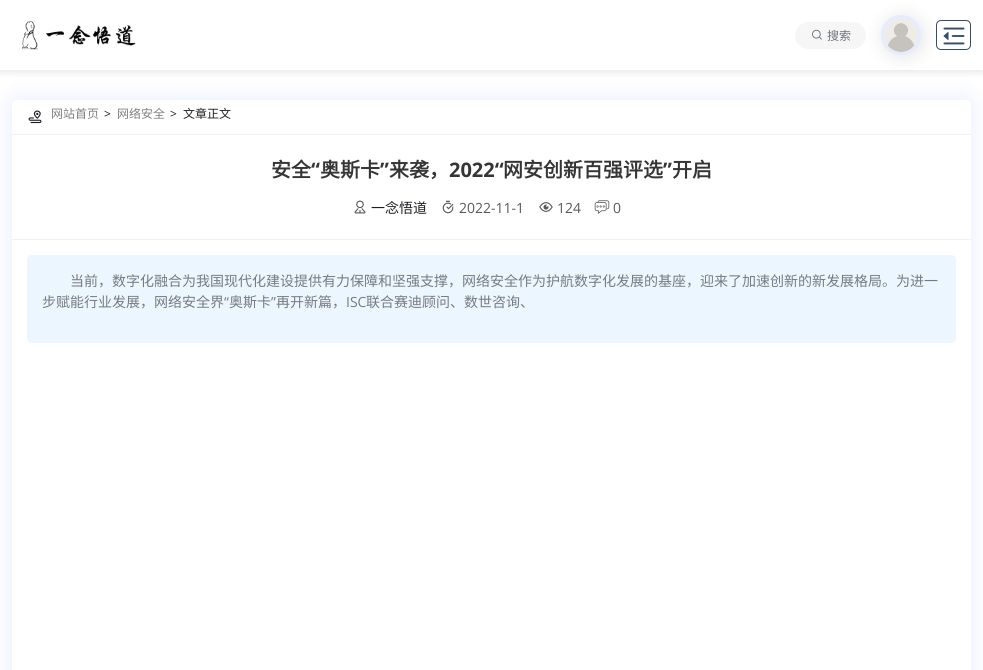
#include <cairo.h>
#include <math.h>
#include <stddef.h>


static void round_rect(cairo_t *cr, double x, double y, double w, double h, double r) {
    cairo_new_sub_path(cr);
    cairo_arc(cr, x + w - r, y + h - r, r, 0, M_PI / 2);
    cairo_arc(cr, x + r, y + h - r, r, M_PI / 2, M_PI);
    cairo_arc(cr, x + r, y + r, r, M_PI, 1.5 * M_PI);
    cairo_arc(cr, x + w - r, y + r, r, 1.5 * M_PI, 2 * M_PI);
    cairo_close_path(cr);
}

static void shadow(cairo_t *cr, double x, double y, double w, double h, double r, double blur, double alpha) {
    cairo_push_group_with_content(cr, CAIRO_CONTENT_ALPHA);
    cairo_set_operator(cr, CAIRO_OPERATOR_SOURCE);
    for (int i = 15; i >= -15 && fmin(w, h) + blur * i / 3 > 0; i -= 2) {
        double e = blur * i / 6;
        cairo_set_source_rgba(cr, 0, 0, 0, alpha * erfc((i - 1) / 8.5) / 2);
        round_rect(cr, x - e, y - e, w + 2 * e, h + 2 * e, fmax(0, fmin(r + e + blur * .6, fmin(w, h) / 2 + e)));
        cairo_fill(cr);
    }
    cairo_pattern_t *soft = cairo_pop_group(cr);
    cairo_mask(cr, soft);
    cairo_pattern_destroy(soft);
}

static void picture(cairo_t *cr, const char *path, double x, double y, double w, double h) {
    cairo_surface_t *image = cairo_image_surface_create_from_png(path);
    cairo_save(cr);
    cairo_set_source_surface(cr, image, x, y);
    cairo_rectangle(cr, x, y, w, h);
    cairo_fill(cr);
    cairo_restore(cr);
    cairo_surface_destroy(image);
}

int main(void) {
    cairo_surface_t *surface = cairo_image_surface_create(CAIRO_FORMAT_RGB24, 983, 670);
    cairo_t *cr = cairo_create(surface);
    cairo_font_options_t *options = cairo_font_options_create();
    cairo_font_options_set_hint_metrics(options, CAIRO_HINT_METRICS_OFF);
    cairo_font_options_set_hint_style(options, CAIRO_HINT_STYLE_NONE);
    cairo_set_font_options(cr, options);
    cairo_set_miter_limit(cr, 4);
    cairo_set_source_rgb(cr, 1, 1, 1);
    cairo_paint(cr);
    cairo_save(cr);
    cairo_rectangle(cr, 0, 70, 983, 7);
    cairo_clip(cr);
    cairo_set_source_rgb(cr, 0.592, 0.592, 0.592);
    shadow(cr, 0, 3, 983, 70, 0, 3.5, 0.2);
    cairo_restore(cr);
    picture(cr, "img1.png", 22, 20, 114, 30);
    cairo_set_source_rgb(cr, 0.961, 0.961, 0.961);
    round_rect(cr, 795, 22, 71, 27, 13.5);
    cairo_fill(cr);
    picture(cr, "img2.png", 812, 29, 10, 11);
    cairo_select_font_face(cr, "Noto Sans CJK SC", CAIRO_FONT_SLANT_NORMAL, CAIRO_FONT_WEIGHT_NORMAL);
    cairo_set_font_size(cr, 12);
    cairo_set_source_rgb(cr, 0.424, 0.459, 0.49);
    cairo_move_to(cr, 827, 40);
    cairo_show_text(cr, "搜索");
    cairo_set_source_rgb(cr, 0, 0, 0);
    shadow(cr, 883, 17, 40, 40, 20, 9, 0.1);
    cairo_arc(cr, 901, 35, 18.5, 0, 2 * M_PI);
    cairo_set_source_rgb(cr, 0.898, 0.922, 1);
    cairo_set_line_width(cr, 3);
    cairo_stroke(cr);
    picture(cr, "img3.png", 884, 18, 34, 34);
    round_rect(cr, 936.5, 20.5, 34, 29, 4.5);
    cairo_set_source_rgb(cr, 0.212, 0.306, 0.396);
    cairo_set_line_width(cr, 1);
    cairo_stroke(cr);
    picture(cr, "img4.png", 943, 27, 22, 18);
    cairo_set_source_rgb(cr, 0.176, 0.412, 1);
    shadow(cr, 12, 100, 959, 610, 5, 11.5, 0.13);
    cairo_set_source_rgb(cr, 1, 1, 1);
    round_rect(cr, 12, 100, 959, 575, 5);
    cairo_fill(cr);
    cairo_set_source_rgb(cr, 0.949, 0.949, 0.949);
    cairo_rectangle(cr, 12, 134, 959, 1);
    cairo_fill(cr);
    picture(cr, "img5.png", 28, 110, 14, 14);
    cairo_set_source_rgb(cr, 0.502, 0.502, 0.502);
    cairo_move_to(cr, 51, 118);
    cairo_show_text(cr, "网站首页");
    cairo_select_font_face(cr, "Open Sans", CAIRO_FONT_SLANT_NORMAL, CAIRO_FONT_WEIGHT_NORMAL);
    cairo_set_source_rgb(cr, 0.11, 0.122, 0.137);
    cairo_move_to(cr, 104, 118);
    cairo_show_text(cr, ">");
    cairo_select_font_face(cr, "Noto Sans CJK SC", CAIRO_FONT_SLANT_NORMAL, CAIRO_FONT_WEIGHT_NORMAL);
    cairo_set_source_rgb(cr, 0.502, 0.502, 0.502);
    cairo_move_to(cr, 117, 118);
    cairo_show_text(cr, "网络安全");
    cairo_select_font_face(cr, "Open Sans", CAIRO_FONT_SLANT_NORMAL, CAIRO_FONT_WEIGHT_NORMAL);
    cairo_set_source_rgb(cr, 0.11, 0.122, 0.137);
    cairo_move_to(cr, 170, 118);
    cairo_show_text(cr, ">");
    cairo_select_font_face(cr, "Noto Sans CJK SC", CAIRO_FONT_SLANT_NORMAL, CAIRO_FONT_WEIGHT_NORMAL);
    cairo_move_to(cr, 183, 118);
    cairo_show_text(cr, "文章正文");
    cairo_set_source_rgb(cr, 0.949, 0.949, 0.949);
    cairo_rectangle(cr, 12, 239, 959, 1);
    cairo_fill(cr);
    cairo_select_font_face(cr, "Noto Sans CJK SC", CAIRO_FONT_SLANT_NORMAL, CAIRO_FONT_WEIGHT_BOLD);
    cairo_set_font_size(cr, 20);
    cairo_set_source_rgb(cr, 0.208, 0.208, 0.208);
    cairo_move_to(cr, 271, 177);
    cairo_show_text(cr, "安全");
    cairo_select_font_face(cr, "Open Sans", CAIRO_FONT_SLANT_NORMAL, CAIRO_FONT_WEIGHT_BOLD);
    cairo_move_to(cr, 311, 177);
    cairo_show_text(cr, "“");
    cairo_select_font_face(cr, "Noto Sans CJK SC", CAIRO_FONT_SLANT_NORMAL, CAIRO_FONT_WEIGHT_BOLD);
    cairo_move_to(cr, 320, 177);
    cairo_show_text(cr, "奥斯卡");
    cairo_select_font_face(cr, "Open Sans", CAIRO_FONT_SLANT_NORMAL, CAIRO_FONT_WEIGHT_BOLD);
    cairo_move_to(cr, 380, 177);
    cairo_show_text(cr, "”");
    cairo_select_font_face(cr, "Noto Sans CJK SC", CAIRO_FONT_SLANT_NORMAL, CAIRO_FONT_WEIGHT_BOLD);
    cairo_move_to(cr, 389, 177);
    cairo_show_text(cr, "来袭，");
    cairo_select_font_face(cr, "Open Sans", CAIRO_FONT_SLANT_NORMAL, CAIRO_FONT_WEIGHT_BOLD);
    cairo_move_to(cr, 449, 177);
    cairo_show_text(cr, "2022“");
    cairo_select_font_face(cr, "Noto Sans CJK SC", CAIRO_FONT_SLANT_NORMAL, CAIRO_FONT_WEIGHT_BOLD);
    cairo_move_to(cr, 503, 177);
    cairo_show_text(cr, "网安创新百强评选");
    cairo_select_font_face(cr, "Open Sans", CAIRO_FONT_SLANT_NORMAL, CAIRO_FONT_WEIGHT_BOLD);
    cairo_move_to(cr, 663, 177);
    cairo_show_text(cr, "”");
    cairo_select_font_face(cr, "Noto Sans CJK SC", CAIRO_FONT_SLANT_NORMAL, CAIRO_FONT_WEIGHT_BOLD);
    cairo_move_to(cr, 672, 177);
    cairo_show_text(cr, "开启");
    picture(cr, "img6.png", 354, 200, 12, 14);
    cairo_select_font_face(cr, "Noto Sans CJK SC", CAIRO_FONT_SLANT_NORMAL, CAIRO_FONT_WEIGHT_NORMAL);
    cairo_set_font_size(cr, 14);
    cairo_set_source_rgb(cr, 0.11, 0.122, 0.137);
    cairo_move_to(cr, 371, 213);
    cairo_show_text(cr, "一念悟道");
    picture(cr, "img7.png", 442, 200, 12, 14);
    cairo_select_font_face(cr, "Open Sans", CAIRO_FONT_SLANT_NORMAL, CAIRO_FONT_WEIGHT_NORMAL);
    cairo_set_source_rgb(cr, 0.349, 0.349, 0.349);
    cairo_move_to(cr, 459, 213);
    cairo_show_text(cr, "2022-11-1");
    picture(cr, "img8.png", 539, 202, 14, 10);
    cairo_move_to(cr, 557, 213);
    cairo_show_text(cr, "124");
    picture(cr, "img9.png", 594, 200, 16, 14);
    cairo_move_to(cr, 613, 213);
    cairo_show_text(cr, "0");
    cairo_set_source_rgb(cr, 0.925, 0.961, 1);
    round_rect(cr, 27, 255, 929, 88, 5);
    cairo_fill(cr);
    cairo_select_font_face(cr, "Noto Sans CJK SC", CAIRO_FONT_SLANT_NORMAL, CAIRO_FONT_WEIGHT_NORMAL);
    cairo_set_source_rgb(cr, 0.463, 0.482, 0.502);
    cairo_move_to(cr, 70, 286);
    cairo_show_text(cr, "当前，数字化融合为我国现代化建设提供有力保障和坚强支撑，网络安全作为护航数字化发展的基座，迎来了加速创新的新发展格局。为进一");
    cairo_move_to(cr, 42, 307);
    cairo_show_text(cr, "步赋能行业发展，网络安全界");
    cairo_select_font_face(cr, "Open Sans", CAIRO_FONT_SLANT_NORMAL, CAIRO_FONT_WEIGHT_NORMAL);
    cairo_move_to(cr, 224, 307);
    cairo_show_text(cr, "“");
    cairo_select_font_face(cr, "Noto Sans CJK SC", CAIRO_FONT_SLANT_NORMAL, CAIRO_FONT_WEIGHT_NORMAL);
    cairo_move_to(cr, 229, 307);
    cairo_show_text(cr, "奥斯卡");
    cairo_select_font_face(cr, "Open Sans", CAIRO_FONT_SLANT_NORMAL, CAIRO_FONT_WEIGHT_NORMAL);
    cairo_move_to(cr, 271, 307);
    cairo_show_text(cr, "”");
    cairo_select_font_face(cr, "Noto Sans CJK SC", CAIRO_FONT_SLANT_NORMAL, CAIRO_FONT_WEIGHT_NORMAL);
    cairo_move_to(cr, 276, 307);
    cairo_show_text(cr, "再开新篇，");
    cairo_select_font_face(cr, "Open Sans", CAIRO_FONT_SLANT_NORMAL, CAIRO_FONT_WEIGHT_NORMAL);
    cairo_move_to(cr, 346, 307);
    cairo_show_text(cr, "ISC");
    cairo_select_font_face(cr, "Noto Sans CJK SC", CAIRO_FONT_SLANT_NORMAL, CAIRO_FONT_WEIGHT_NORMAL);
    cairo_move_to(cr, 366, 307);
    cairo_show_text(cr, "联合赛迪顾问、数世咨询、");
    cairo_surface_write_to_png(surface, "page.png");
    cairo_font_options_destroy(options);
    cairo_destroy(cr);
    cairo_surface_destroy(surface);
    return 0;
}
